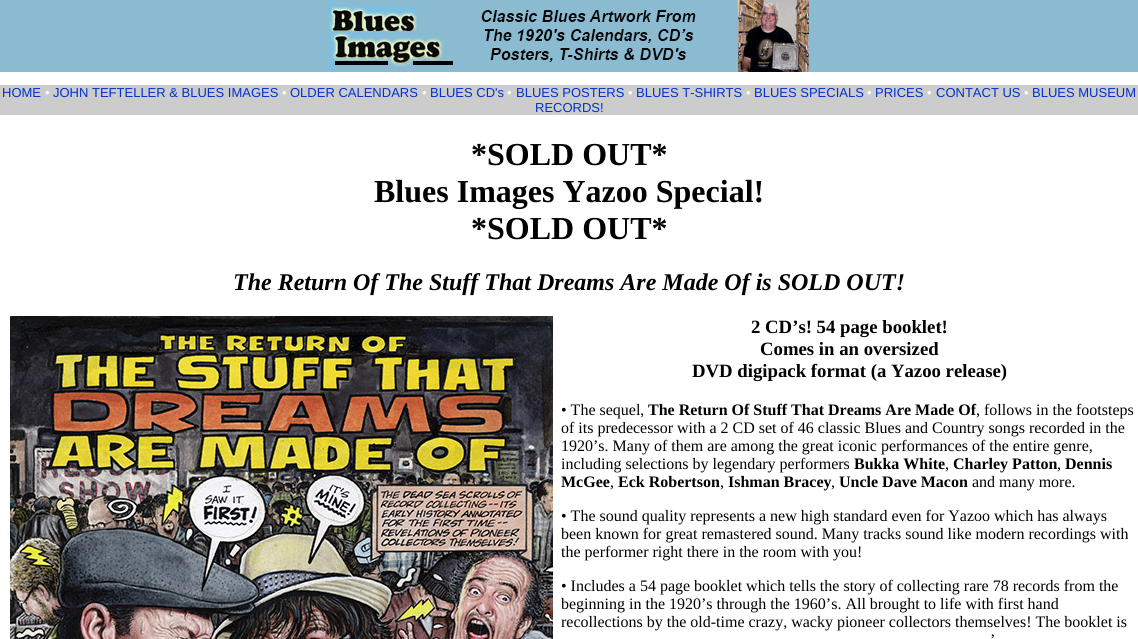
#include <cairo.h>
#include <math.h>
#include <stddef.h>


static void picture(cairo_t *cr, const char *path, double x, double y, double w, double h) {
    cairo_surface_t *image = cairo_image_surface_create_from_png(path);
    cairo_save(cr);
    cairo_set_source_surface(cr, image, x, y);
    cairo_rectangle(cr, x, y, w, h);
    cairo_fill(cr);
    cairo_restore(cr);
    cairo_surface_destroy(image);
}

int main(void) {
    cairo_surface_t *surface = cairo_image_surface_create(CAIRO_FORMAT_RGB24, 1138, 639);
    cairo_t *cr = cairo_create(surface);
    cairo_font_options_t *options = cairo_font_options_create();
    cairo_font_options_set_hint_metrics(options, CAIRO_HINT_METRICS_OFF);
    cairo_font_options_set_hint_style(options, CAIRO_HINT_STYLE_NONE);
    cairo_set_font_options(cr, options);
    cairo_set_miter_limit(cr, 4);
    cairo_set_source_rgb(cr, 1, 1, 1);
    cairo_paint(cr);
    cairo_set_source_rgb(cr, 0.545, 0.733, 0.82);
    cairo_rectangle(cr, 0, 0, 1138, 72);
    cairo_fill(cr);
    picture(cr, "img1.png", 329, 0, 480, 72);
    cairo_set_source_rgb(cr, 0.8, 0.8, 0.8);
    cairo_rectangle(cr, 0, 85, 1138, 30);
    cairo_fill(cr);
    cairo_select_font_face(cr, "Liberation Sans", CAIRO_FONT_SLANT_NORMAL, CAIRO_FONT_WEIGHT_NORMAL);
    cairo_set_font_size(cr, 13);
    cairo_set_source_rgb(cr, 0, 0.2, 0.8);
    cairo_move_to(cr, 2, 97);
    cairo_show_text(cr, "HOME");
    cairo_set_source_rgb(cr, 1, 1, 1);
    cairo_move_to(cr, 45, 97);
    cairo_show_text(cr, "•");
    cairo_set_source_rgb(cr, 0, 0.2, 0.8);
    cairo_move_to(cr, 53, 97);
    cairo_show_text(cr, "JOHN TEFTELLER & BLUES IMAGES");
    cairo_set_source_rgb(cr, 1, 1, 1);
    cairo_move_to(cr, 282, 97);
    cairo_show_text(cr, "•");
    cairo_set_source_rgb(cr, 0, 0.2, 0.8);
    cairo_move_to(cr, 290, 97);
    cairo_show_text(cr, "OLDER CALENDARS");
    cairo_set_source_rgb(cr, 1, 1, 1);
    cairo_move_to(cr, 422, 97);
    cairo_show_text(cr, "•");
    cairo_set_source_rgb(cr, 0, 0.2, 0.8);
    cairo_move_to(cr, 430, 97);
    cairo_show_text(cr, "BLUES CD's");
    cairo_set_source_rgb(cr, 1, 1, 1);
    cairo_move_to(cr, 507, 97);
    cairo_show_text(cr, "•");
    cairo_set_source_rgb(cr, 0, 0.2, 0.8);
    cairo_move_to(cr, 516, 97);
    cairo_show_text(cr, "BLUES POSTERS");
    cairo_set_source_rgb(cr, 1, 1, 1);
    cairo_move_to(cr, 628, 97);
    cairo_show_text(cr, "•");
    cairo_set_source_rgb(cr, 0, 0.2, 0.8);
    cairo_move_to(cr, 636, 97);
    cairo_show_text(cr, "BLUES T-SHIRTS");
    cairo_set_source_rgb(cr, 1, 1, 1);
    cairo_move_to(cr, 746, 97);
    cairo_show_text(cr, "•");
    cairo_set_source_rgb(cr, 0, 0.2, 0.8);
    cairo_move_to(cr, 754, 97);
    cairo_show_text(cr, "BLUES SPECIALS");
    cairo_set_source_rgb(cr, 1, 1, 1);
    cairo_move_to(cr, 867, 97);
    cairo_show_text(cr, "•");
    cairo_set_source_rgb(cr, 0, 0.2, 0.8);
    cairo_move_to(cr, 875, 97);
    cairo_show_text(cr, "PRICES");
    cairo_set_source_rgb(cr, 1, 1, 1);
    cairo_move_to(cr, 927, 97);
    cairo_show_text(cr, "•");
    cairo_set_source_rgb(cr, 0, 0.2, 0.8);
    cairo_move_to(cr, 936, 97);
    cairo_show_text(cr, "CONTACT US");
    cairo_set_source_rgb(cr, 1, 1, 1);
    cairo_move_to(cr, 1024, 97);
    cairo_show_text(cr, "•");
    cairo_set_source_rgb(cr, 0, 0.2, 0.8);
    cairo_move_to(cr, 1032, 97);
    cairo_show_text(cr, "BLUES MUSEUM");
    cairo_move_to(cr, 535, 112);
    cairo_show_text(cr, "RECORDS!");
    cairo_select_font_face(cr, "Liberation Serif", CAIRO_FONT_SLANT_NORMAL, CAIRO_FONT_WEIGHT_BOLD);
    cairo_set_font_size(cr, 32);
    cairo_set_source_rgb(cr, 0, 0, 0);
    cairo_move_to(cr, 471, 165);
    cairo_show_text(cr, "*SOLD OUT*");
    cairo_move_to(cr, 374, 202);
    cairo_show_text(cr, "Blues Images Yazoo Special!");
    cairo_move_to(cr, 471, 239);
    cairo_show_text(cr, "*SOLD OUT*");
    cairo_select_font_face(cr, "Liberation Serif", CAIRO_FONT_SLANT_ITALIC, CAIRO_FONT_WEIGHT_BOLD);
    cairo_set_font_size(cr, 24);
    cairo_move_to(cr, 233, 290);
    cairo_show_text(cr, "The Return Of The Stuff That Dreams Are Made Of is SOLD OUT!");
    picture(cr, "img2.png", 10, 316, 543, 323);
    cairo_select_font_face(cr, "Liberation Serif", CAIRO_FONT_SLANT_NORMAL, CAIRO_FONT_WEIGHT_BOLD);
    cairo_set_font_size(cr, 18.75);
    cairo_move_to(cr, 751, 333);
    cairo_show_text(cr, "2 CD’s! 54 page booklet!");
    cairo_move_to(cr, 760, 355);
    cairo_show_text(cr, "Comes in an oversized");
    cairo_move_to(cr, 692, 377);
    cairo_show_text(cr, "DVD digipack format (a Yazoo release)");
    cairo_select_font_face(cr, "Liberation Serif", CAIRO_FONT_SLANT_NORMAL, CAIRO_FONT_WEIGHT_NORMAL);
    cairo_set_font_size(cr, 16);
    cairo_move_to(cr, 561, 415);
    cairo_show_text(cr, "• The sequel,");
    cairo_select_font_face(cr, "Liberation Serif", CAIRO_FONT_SLANT_NORMAL, CAIRO_FONT_WEIGHT_BOLD);
    cairo_move_to(cr, 648, 415);
    cairo_show_text(cr, "The Return Of Stuff That Dreams Are Made Of");
    cairo_select_font_face(cr, "Liberation Serif", CAIRO_FONT_SLANT_NORMAL, CAIRO_FONT_WEIGHT_NORMAL);
    cairo_move_to(cr, 976, 415);
    cairo_show_text(cr, ", follows in the footsteps");
    cairo_move_to(cr, 561, 433);
    cairo_show_text(cr, "of its predecessor with a 2 CD set of 46 classic Blues and Country songs recorded in the");
    cairo_move_to(cr, 561, 451);
    cairo_show_text(cr, "1920’s. Many of them are among the great iconic performances of the entire genre,");
    cairo_move_to(cr, 561, 469);
    cairo_show_text(cr, "including selections by legendary performers");
    cairo_select_font_face(cr, "Liberation Serif", CAIRO_FONT_SLANT_NORMAL, CAIRO_FONT_WEIGHT_BOLD);
    cairo_move_to(cr, 854, 469);
    cairo_show_text(cr, "Bukka White");
    cairo_select_font_face(cr, "Liberation Serif", CAIRO_FONT_SLANT_NORMAL, CAIRO_FONT_WEIGHT_NORMAL);
    cairo_move_to(cr, 945, 469);
    cairo_show_text(cr, ",");
    cairo_select_font_face(cr, "Liberation Serif", CAIRO_FONT_SLANT_NORMAL, CAIRO_FONT_WEIGHT_BOLD);
    cairo_move_to(cr, 953, 469);
    cairo_show_text(cr, "Charley Patton");
    cairo_select_font_face(cr, "Liberation Serif", CAIRO_FONT_SLANT_NORMAL, CAIRO_FONT_WEIGHT_NORMAL);
    cairo_move_to(cr, 1057, 469);
    cairo_show_text(cr, ",");
    cairo_select_font_face(cr, "Liberation Serif", CAIRO_FONT_SLANT_NORMAL, CAIRO_FONT_WEIGHT_BOLD);
    cairo_move_to(cr, 1065, 469);
    cairo_show_text(cr, "Dennis");
    cairo_move_to(cr, 561, 487);
    cairo_show_text(cr, "McGee");
    cairo_select_font_face(cr, "Liberation Serif", CAIRO_FONT_SLANT_NORMAL, CAIRO_FONT_WEIGHT_NORMAL);
    cairo_move_to(cr, 610, 487);
    cairo_show_text(cr, ",");
    cairo_select_font_face(cr, "Liberation Serif", CAIRO_FONT_SLANT_NORMAL, CAIRO_FONT_WEIGHT_BOLD);
    cairo_move_to(cr, 618, 487);
    cairo_show_text(cr, "Eck Robertson");
    cairo_select_font_face(cr, "Liberation Serif", CAIRO_FONT_SLANT_NORMAL, CAIRO_FONT_WEIGHT_NORMAL);
    cairo_move_to(cr, 720, 487);
    cairo_show_text(cr, ",");
    cairo_select_font_face(cr, "Liberation Serif", CAIRO_FONT_SLANT_NORMAL, CAIRO_FONT_WEIGHT_BOLD);
    cairo_move_to(cr, 728, 487);
    cairo_show_text(cr, "Ishman Bracey");
    cairo_select_font_face(cr, "Liberation Serif", CAIRO_FONT_SLANT_NORMAL, CAIRO_FONT_WEIGHT_NORMAL);
    cairo_move_to(cr, 831, 487);
    cairo_show_text(cr, ",");
    cairo_select_font_face(cr, "Liberation Serif", CAIRO_FONT_SLANT_NORMAL, CAIRO_FONT_WEIGHT_BOLD);
    cairo_move_to(cr, 839, 487);
    cairo_show_text(cr, "Uncle Dave Macon");
    cairo_select_font_face(cr, "Liberation Serif", CAIRO_FONT_SLANT_NORMAL, CAIRO_FONT_WEIGHT_NORMAL);
    cairo_move_to(cr, 972, 487);
    cairo_show_text(cr, "and many more.");
    cairo_move_to(cr, 561, 521);
    cairo_show_text(cr, "• The sound quality represents a new high standard even for Yazoo which has always");
    cairo_move_to(cr, 561, 539);
    cairo_show_text(cr, "been known for great remastered sound. Many tracks sound like modern recordings with");
    cairo_move_to(cr, 561, 557);
    cairo_show_text(cr, "the performer right there in the room with you!");
    cairo_move_to(cr, 561, 591);
    cairo_show_text(cr, "• Includes a 54 page booklet which tells the story of collecting rare 78 records from the");
    cairo_move_to(cr, 561, 609);
    cairo_show_text(cr, "beginning in the 1920’s through the 1960’s. All brought to life with first hand");
    cairo_move_to(cr, 561, 627);
    cairo_show_text(cr, "recollections by the old-time crazy, wacky pioneer collectors themselves! The booklet is");
    cairo_move_to(cr, 990, 645);
    cairo_show_text(cr, "’");
    cairo_surface_write_to_png(surface, "page.png");
    cairo_font_options_destroy(options);
    cairo_destroy(cr);
    cairo_surface_destroy(surface);
    return 0;
}
